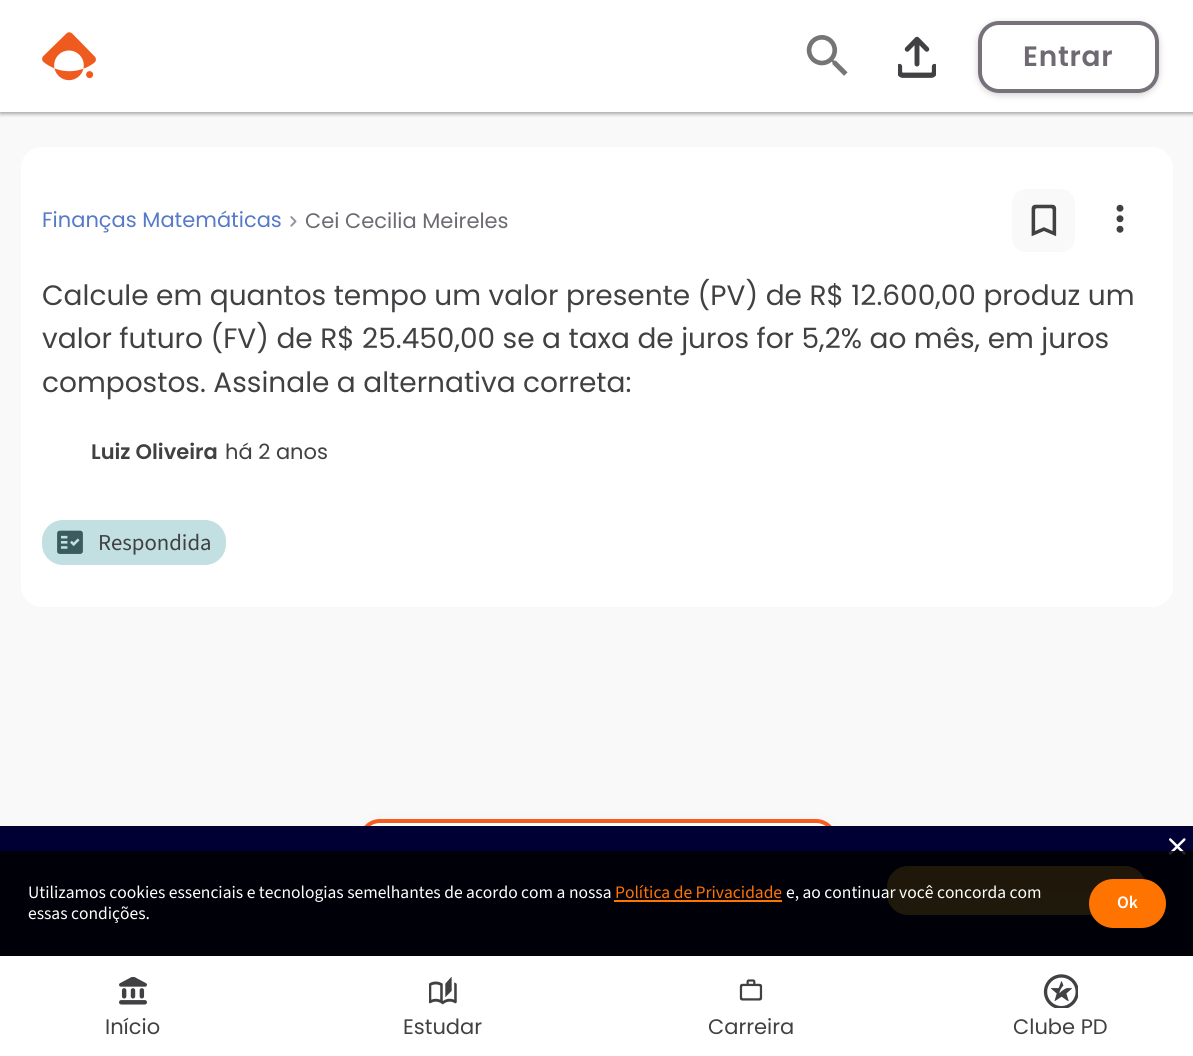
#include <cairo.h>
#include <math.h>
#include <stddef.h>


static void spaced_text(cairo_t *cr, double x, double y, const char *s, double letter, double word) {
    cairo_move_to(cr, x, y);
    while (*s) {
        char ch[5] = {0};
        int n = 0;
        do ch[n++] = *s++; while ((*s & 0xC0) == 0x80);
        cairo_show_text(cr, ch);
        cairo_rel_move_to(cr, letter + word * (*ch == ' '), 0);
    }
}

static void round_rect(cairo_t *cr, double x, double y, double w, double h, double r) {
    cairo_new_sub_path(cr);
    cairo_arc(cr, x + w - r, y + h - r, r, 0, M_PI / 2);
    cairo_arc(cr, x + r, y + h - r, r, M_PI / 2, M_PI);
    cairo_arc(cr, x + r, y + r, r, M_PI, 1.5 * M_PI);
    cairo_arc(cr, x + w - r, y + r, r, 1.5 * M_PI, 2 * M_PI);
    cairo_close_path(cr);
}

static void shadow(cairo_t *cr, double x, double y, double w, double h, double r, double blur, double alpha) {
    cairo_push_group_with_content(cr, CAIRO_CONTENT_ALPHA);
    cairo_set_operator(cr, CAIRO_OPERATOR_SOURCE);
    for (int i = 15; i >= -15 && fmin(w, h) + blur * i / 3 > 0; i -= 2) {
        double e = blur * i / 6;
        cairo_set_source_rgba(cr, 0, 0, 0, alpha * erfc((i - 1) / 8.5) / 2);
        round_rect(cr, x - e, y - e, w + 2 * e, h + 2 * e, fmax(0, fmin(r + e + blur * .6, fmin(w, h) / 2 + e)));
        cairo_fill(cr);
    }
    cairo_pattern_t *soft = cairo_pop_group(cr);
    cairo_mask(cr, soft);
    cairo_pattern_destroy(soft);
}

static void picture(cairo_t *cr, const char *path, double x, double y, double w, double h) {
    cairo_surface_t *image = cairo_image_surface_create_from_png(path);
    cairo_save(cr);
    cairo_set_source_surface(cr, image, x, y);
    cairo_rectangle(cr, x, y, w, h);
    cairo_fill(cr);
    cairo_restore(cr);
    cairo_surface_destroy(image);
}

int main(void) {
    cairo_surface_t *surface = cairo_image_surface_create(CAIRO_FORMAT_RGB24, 1193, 1056);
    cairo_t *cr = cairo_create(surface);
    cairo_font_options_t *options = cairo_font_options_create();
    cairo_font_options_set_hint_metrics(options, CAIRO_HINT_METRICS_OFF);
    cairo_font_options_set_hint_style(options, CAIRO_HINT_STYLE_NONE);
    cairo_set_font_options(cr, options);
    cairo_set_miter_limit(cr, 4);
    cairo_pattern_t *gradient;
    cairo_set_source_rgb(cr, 0.973, 0.973, 0.973);
    cairo_paint(cr);
    cairo_set_source_rgb(cr, 0, 0, 0);
    shadow(cr, 0, 2, 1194, 112, 0, 2, 0.34);
    cairo_set_source_rgb(cr, 1, 1, 1);
    cairo_rectangle(cr, 0, 0, 1193, 112);
    cairo_fill(cr);
    picture(cr, "img1.png", 42, 32, 54, 49);
    picture(cr, "img2.png", 806, 35, 42, 41);
    picture(cr, "img3.png", 898, 36, 38, 42);
    cairo_save(cr);
    cairo_set_fill_rule(cr, CAIRO_FILL_RULE_EVEN_ODD);
    cairo_new_path(cr);
    cairo_move_to(cr, 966, 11);
    cairo_line_to(cr, 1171, 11);
    cairo_line_to(cr, 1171, 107);
    cairo_line_to(cr, 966, 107);
    cairo_close_path(cr);
    cairo_move_to(cr, 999, 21);
    cairo_line_to(cr, 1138, 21);
    cairo_curve_to(cr, 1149.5, 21, 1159, 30.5, 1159, 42);
    cairo_line_to(cr, 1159, 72);
    cairo_curve_to(cr, 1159, 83.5, 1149.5, 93, 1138, 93);
    cairo_line_to(cr, 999, 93);
    cairo_curve_to(cr, 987.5, 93, 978, 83.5, 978, 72);
    cairo_line_to(cr, 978, 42);
    cairo_curve_to(cr, 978, 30.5, 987.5, 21, 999, 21);
    cairo_close_path(cr);
    cairo_clip(cr);
    cairo_set_source_rgb(cr, 0.255, 0.251, 0.259);
    shadow(cr, 978, 23, 181, 72, 21, 3.5, 0.25);
    cairo_restore(cr);
    round_rect(cr, 980, 23, 177, 68, 19);
    cairo_set_source_rgb(cr, 0.463, 0.443, 0.482);
    cairo_set_line_width(cr, 4);
    cairo_stroke(cr);
    cairo_select_font_face(cr, "Poppins SemiBold", CAIRO_FONT_SLANT_NORMAL, CAIRO_FONT_WEIGHT_NORMAL);
    cairo_set_font_size(cr, 28);
    cairo_set_source_rgb(cr, 0.431, 0.412, 0.447);
    spaced_text(cr, 1023, 66, "Entrar", 0.75, 0);
    cairo_set_source_rgb(cr, 1, 1, 1);
    round_rect(cr, 21, 147, 1152, 460, 21);
    cairo_fill(cr);
    cairo_select_font_face(cr, "Poppins", CAIRO_FONT_SLANT_NORMAL, CAIRO_FONT_WEIGHT_NORMAL);
    cairo_set_font_size(cr, 21);
    cairo_set_source_rgb(cr, 0.337, 0.475, 0.784);
    cairo_move_to(cr, 42, 227);
    cairo_show_text(cr, "Finanças Matemáticas");
    picture(cr, "img4.png", 290, 216, 7, 11);
    cairo_set_source_rgb(cr, 0.431, 0.412, 0.447);
    cairo_move_to(cr, 305, 228);
    cairo_show_text(cr, "Cei Cecilia Meireles");
    cairo_set_source_rgb(cr, 0.973, 0.973, 0.973);
    round_rect(cr, 1012, 189, 63, 63, 14);
    cairo_fill(cr);
    picture(cr, "img5.png", 1031, 204, 26, 33);
    picture(cr, "img6.png", 1116, 204, 8, 29);
    cairo_set_font_size(cr, 28);
    cairo_set_source_rgb(cr, 0.255, 0.251, 0.259);
    cairo_move_to(cr, 42, 305);
    cairo_show_text(cr, "Calcule em quantos tempo um valor presente (PV) de R$ 12.600,00 produz um");
    cairo_move_to(cr, 42, 348);
    cairo_show_text(cr, "valor futuro (FV) de R$ 25.450,00 se a taxa de juros for 5,2% ao mês, em juros");
    cairo_move_to(cr, 42, 392);
    cairo_show_text(cr, "compostos. Assinale a alternativa correta:");
    cairo_select_font_face(cr, "Poppins SemiBold", CAIRO_FONT_SLANT_NORMAL, CAIRO_FONT_WEIGHT_NORMAL);
    cairo_set_font_size(cr, 21);
    cairo_move_to(cr, 91, 459);
    cairo_show_text(cr, "Luiz Oliveira");
    cairo_select_font_face(cr, "Poppins", CAIRO_FONT_SLANT_NORMAL, CAIRO_FONT_WEIGHT_NORMAL);
    cairo_move_to(cr, 225, 459);
    cairo_show_text(cr, "há 2 anos");
    cairo_set_source_rgb(cr, 0.761, 0.878, 0.882);
    round_rect(cr, 42, 520, 184, 45, 21);
    cairo_fill(cr);
    picture(cr, "img7.png", 57, 530, 26, 24);
    cairo_select_font_face(cr, "Source Sans 3", CAIRO_FONT_SLANT_NORMAL, CAIRO_FONT_WEIGHT_NORMAL);
    cairo_set_font_size(cr, 22.75);
    cairo_set_source_rgb(cr, 0.255, 0.251, 0.259);
    cairo_move_to(cr, 98, 550);
    cairo_show_text(cr, "Respondida");
    cairo_set_source_rgb(cr, 0.255, 0.251, 0.259);
    shadow(cr, 359, 830, 478, 91, 21, 10.5, 0.15);
    cairo_set_source_rgb(cr, 1, 1, 1);
    round_rect(cr, 361, 821, 474, 87, 19);
    cairo_fill_preserve(cr);
    cairo_set_source_rgb(cr, 0.961, 0.357, 0.122);
    cairo_stroke(cr);
    cairo_set_source_rgb(cr, 0, 0, 0.208);
    cairo_rectangle(cr, 0, 826, 1193, 130);
    cairo_fill(cr);
    picture(cr, "img8.png", 1169, 838, 17, 17);
    gradient = cairo_pattern_create_radial(0, 0, 0, 0, 0, 1);
    cairo_pattern_set_matrix(gradient, &(cairo_matrix_t){1.0 / 807, 0, 0, 1.0 / 37, -1.0 * 829 / 807, -1.0 * 905 / 37});
    cairo_pattern_add_color_stop_rgba(gradient, 0, 0.827, 0.675, 0.298, 1);
    cairo_pattern_add_color_stop_rgba(gradient, 1, 0.796, 0.604, 0.251, 1);
    cairo_set_source(cr, gradient);
    cairo_pattern_destroy(gradient);
    round_rect(cr, 887, 866, 259, 49, 21);
    cairo_fill(cr);
    cairo_set_source_rgb(cr, 0.255, 0.251, 0.259);
    shadow(cr, 0, 952, 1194, 102, 0, 3.5, 0.2);
    cairo_set_source_rgba(cr, 0, 0, 0, 0.85);
    cairo_rectangle(cr, 0, 851, 1193, 105);
    cairo_fill(cr);
    cairo_set_font_size(cr, 17.5);
    cairo_set_source_rgb(cr, 1, 1, 1);
    cairo_move_to(cr, 28, 898);
    cairo_show_text(cr, "Utilizamos cookies essenciais e tecnologias semelhantes de acordo com a nossa");
    cairo_set_source_rgb(cr, 1, 0.451, 0);
    cairo_move_to(cr, 615, 898);
    cairo_show_text(cr, "Política de Privacidade");
    cairo_rectangle(cr, 614, 900, 168, 2);
    cairo_fill(cr);
    cairo_set_source_rgb(cr, 1, 1, 1);
    cairo_move_to(cr, 786, 898);
    cairo_show_text(cr, "e, ao continuar você concorda com");
    cairo_move_to(cr, 28, 919);
    cairo_show_text(cr, "essas condições.");
    cairo_set_source_rgb(cr, 1, 0.451, 0);
    round_rect(cr, 1089, 879, 77, 49, 24.5);
    cairo_fill(cr);
    cairo_select_font_face(cr, "Source Sans 3 SemiBold", CAIRO_FONT_SLANT_NORMAL, CAIRO_FONT_WEIGHT_NORMAL);
    cairo_set_source_rgb(cr, 1, 1, 1);
    cairo_move_to(cr, 1117, 908);
    cairo_show_text(cr, "Ok");
    cairo_rectangle(cr, 0, 956, 1193, 100);
    cairo_fill(cr);
    picture(cr, "img9.png", 119, 977, 28, 28);
    cairo_select_font_face(cr, "Poppins", CAIRO_FONT_SLANT_NORMAL, CAIRO_FONT_WEIGHT_NORMAL);
    cairo_set_font_size(cr, 21);
    cairo_set_source_rgb(cr, 0.255, 0.251, 0.259);
    cairo_move_to(cr, 105, 1034);
    cairo_show_text(cr, "Início");
    picture(cr, "img10.png", 429, 977, 28, 28);
    cairo_move_to(cr, 403, 1034);
    cairo_show_text(cr, "Estudar");
    picture(cr, "img11.png", 739, 979, 24, 22);
    cairo_move_to(cr, 708, 1034);
    cairo_show_text(cr, "Carreira");
    picture(cr, "img12.png", 1043, 974, 35, 34);
    cairo_move_to(cr, 1013, 1034);
    cairo_show_text(cr, "Clube PD");
    cairo_surface_write_to_png(surface, "page.png");
    cairo_font_options_destroy(options);
    cairo_destroy(cr);
    cairo_surface_destroy(surface);
    return 0;
}
